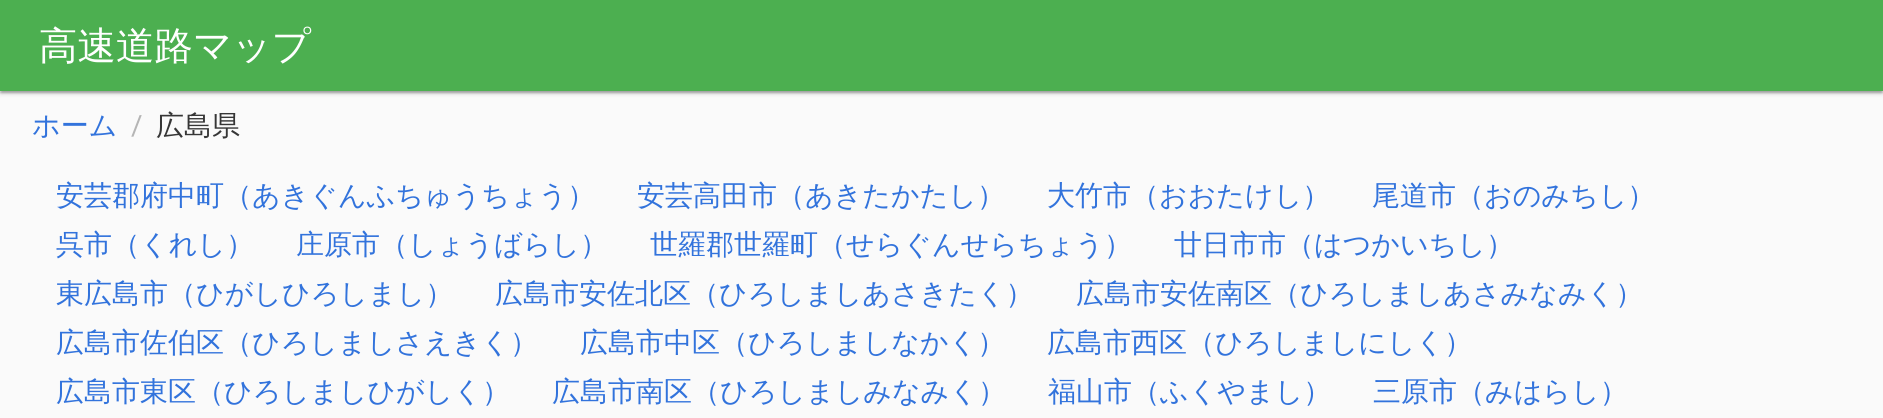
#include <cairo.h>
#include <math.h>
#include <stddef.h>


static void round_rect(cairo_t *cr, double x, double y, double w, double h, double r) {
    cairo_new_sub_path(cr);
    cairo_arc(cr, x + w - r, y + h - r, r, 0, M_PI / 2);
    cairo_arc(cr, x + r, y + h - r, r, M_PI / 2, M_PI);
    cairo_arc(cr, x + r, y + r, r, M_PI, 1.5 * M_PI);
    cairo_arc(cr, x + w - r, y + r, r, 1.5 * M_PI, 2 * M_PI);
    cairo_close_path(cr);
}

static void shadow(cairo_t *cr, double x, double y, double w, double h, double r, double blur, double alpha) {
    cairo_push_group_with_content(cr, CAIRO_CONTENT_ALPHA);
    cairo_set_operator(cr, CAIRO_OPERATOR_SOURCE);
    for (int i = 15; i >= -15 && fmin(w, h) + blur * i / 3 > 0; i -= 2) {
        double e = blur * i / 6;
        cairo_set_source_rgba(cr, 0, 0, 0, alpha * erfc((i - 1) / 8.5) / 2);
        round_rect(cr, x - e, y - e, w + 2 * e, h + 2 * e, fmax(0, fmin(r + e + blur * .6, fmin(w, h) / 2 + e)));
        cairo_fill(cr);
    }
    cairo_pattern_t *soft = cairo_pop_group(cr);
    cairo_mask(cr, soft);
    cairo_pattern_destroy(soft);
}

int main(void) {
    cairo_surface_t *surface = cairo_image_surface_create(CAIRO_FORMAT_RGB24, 1883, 418);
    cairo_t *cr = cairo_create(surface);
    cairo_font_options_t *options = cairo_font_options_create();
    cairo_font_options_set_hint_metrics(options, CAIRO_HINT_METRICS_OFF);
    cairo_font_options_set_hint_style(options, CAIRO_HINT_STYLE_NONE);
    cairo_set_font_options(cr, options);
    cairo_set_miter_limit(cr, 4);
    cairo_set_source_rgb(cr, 0.98, 0.98, 0.98);
    cairo_paint(cr);
    cairo_set_source_rgb(cr, 0, 0, 0);
    shadow(cr, 2, 5, 1879, 88, 0, 1, 0.12);
    shadow(cr, 0, 2, 1883, 91, 0, 1, 0.14);
    shadow(cr, 0, 2, 1883, 91, 0, 2.5, 0.2);
    cairo_set_source_rgb(cr, 0.298, 0.686, 0.314);
    cairo_rectangle(cr, 0, 0, 1883, 91);
    cairo_fill(cr);
    cairo_select_font_face(cr, "WenQuanYi Zen Hei Medium", CAIRO_FONT_SLANT_NORMAL, CAIRO_FONT_WEIGHT_NORMAL);
    cairo_set_font_size(cr, 38.5);
    cairo_set_source_rgb(cr, 1, 1, 1);
    cairo_move_to(cr, 39, 59);
    cairo_show_text(cr, "高速道路マップ");
    cairo_set_font_size(cr, 28);
    cairo_set_source_rgb(cr, 0.196, 0.451, 0.863);
    cairo_move_to(cr, 32, 135);
    cairo_show_text(cr, "ホーム");
    cairo_select_font_face(cr, "Roboto", CAIRO_FONT_SLANT_NORMAL, CAIRO_FONT_WEIGHT_NORMAL);
    cairo_set_source_rgb(cr, 0.71, 0.71, 0.71);
    cairo_move_to(cr, 131, 135);
    cairo_show_text(cr, "/");
    cairo_select_font_face(cr, "WenQuanYi Zen Hei Medium", CAIRO_FONT_SLANT_NORMAL, CAIRO_FONT_WEIGHT_NORMAL);
    cairo_set_source_rgb(cr, 0.212, 0.212, 0.212);
    cairo_move_to(cr, 156, 135);
    cairo_show_text(cr, "広島県");
    cairo_set_source_rgb(cr, 0.196, 0.451, 0.863);
    cairo_move_to(cr, 56, 205);
    cairo_show_text(cr, "安芸郡府中町（あきぐんふちゅうちょう）");
    cairo_move_to(cr, 637, 205);
    cairo_show_text(cr, "安芸高田市（あきたかたし）");
    cairo_move_to(cr, 1047, 205);
    cairo_show_text(cr, "大竹市（おおたけし）");
    cairo_move_to(cr, 1372, 205);
    cairo_show_text(cr, "尾道市（おのみちし）");
    cairo_move_to(cr, 56, 254);
    cairo_show_text(cr, "呉市（くれし）");
    cairo_move_to(cr, 296, 254);
    cairo_show_text(cr, "庄原市（しょうばらし）");
    cairo_move_to(cr, 650, 254);
    cairo_show_text(cr, "世羅郡世羅町（せらぐんせらちょう）");
    cairo_move_to(cr, 1174, 254);
    cairo_show_text(cr, "廿日市市（はつかいちし）");
    cairo_move_to(cr, 56, 303);
    cairo_show_text(cr, "東広島市（ひがしひろしまし）");
    cairo_move_to(cr, 495, 303);
    cairo_show_text(cr, "広島市安佐北区（ひろしましあさきたく）");
    cairo_move_to(cr, 1076, 303);
    cairo_show_text(cr, "広島市安佐南区（ひろしましあさみなみく）");
    cairo_move_to(cr, 56, 352);
    cairo_show_text(cr, "広島市佐伯区（ひろしましさえきく）");
    cairo_move_to(cr, 580, 352);
    cairo_show_text(cr, "広島市中区（ひろしましなかく）");
    cairo_move_to(cr, 1047, 352);
    cairo_show_text(cr, "広島市西区（ひろしましにしく）");
    cairo_move_to(cr, 56, 401);
    cairo_show_text(cr, "広島市東区（ひろしましひがしく）");
    cairo_move_to(cr, 552, 401);
    cairo_show_text(cr, "広島市南区（ひろしましみなみく）");
    cairo_move_to(cr, 1048, 401);
    cairo_show_text(cr, "福山市（ふくやまし）");
    cairo_move_to(cr, 1373, 401);
    cairo_show_text(cr, "三原市（みはらし）");
    cairo_surface_write_to_png(surface, "page.png");
    cairo_font_options_destroy(options);
    cairo_destroy(cr);
    cairo_surface_destroy(surface);
    return 0;
}
